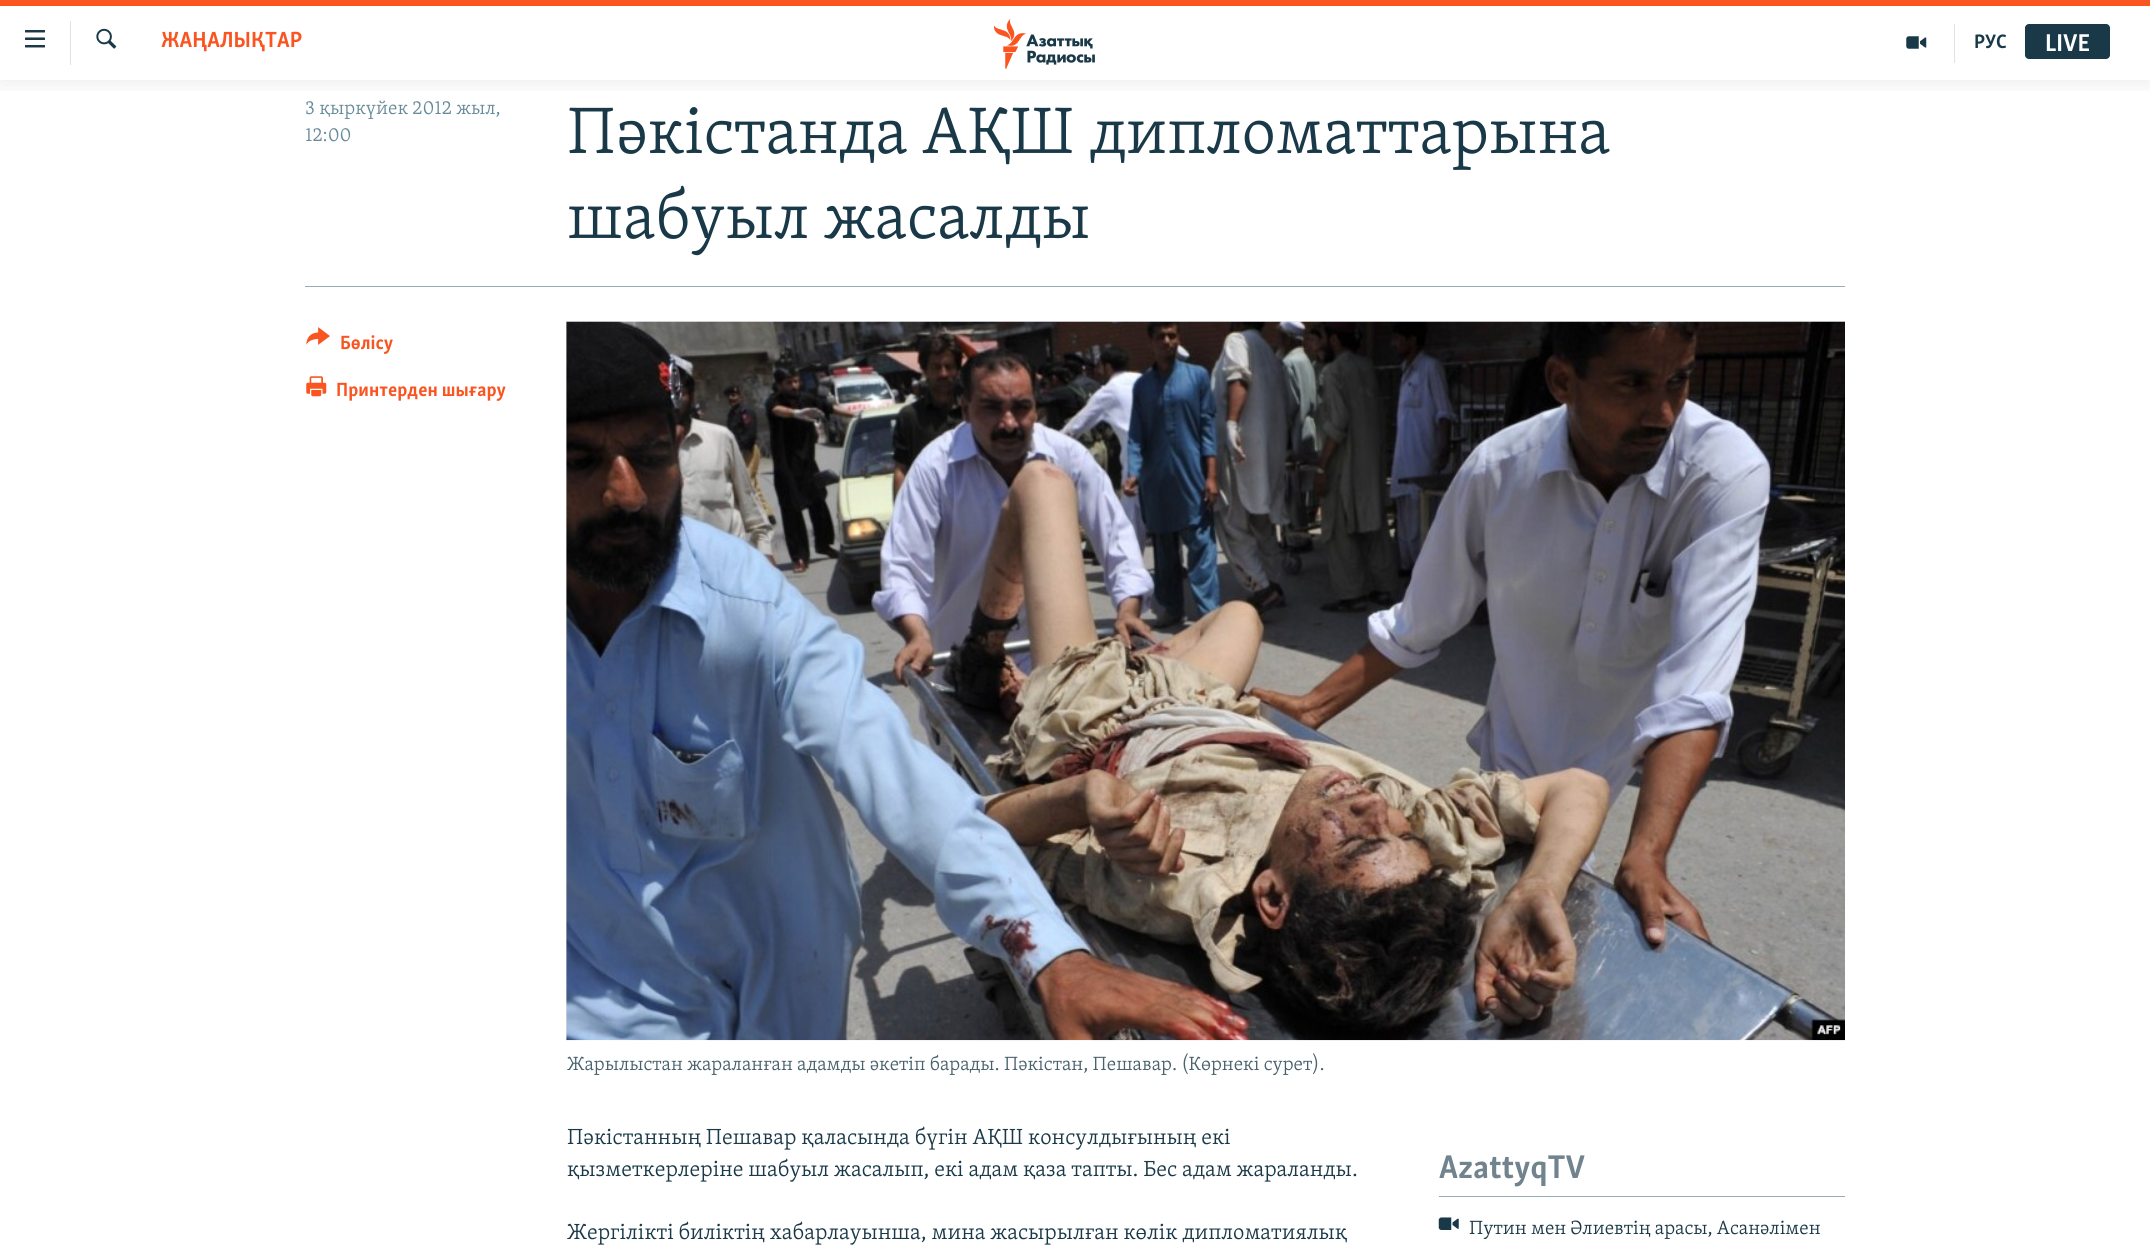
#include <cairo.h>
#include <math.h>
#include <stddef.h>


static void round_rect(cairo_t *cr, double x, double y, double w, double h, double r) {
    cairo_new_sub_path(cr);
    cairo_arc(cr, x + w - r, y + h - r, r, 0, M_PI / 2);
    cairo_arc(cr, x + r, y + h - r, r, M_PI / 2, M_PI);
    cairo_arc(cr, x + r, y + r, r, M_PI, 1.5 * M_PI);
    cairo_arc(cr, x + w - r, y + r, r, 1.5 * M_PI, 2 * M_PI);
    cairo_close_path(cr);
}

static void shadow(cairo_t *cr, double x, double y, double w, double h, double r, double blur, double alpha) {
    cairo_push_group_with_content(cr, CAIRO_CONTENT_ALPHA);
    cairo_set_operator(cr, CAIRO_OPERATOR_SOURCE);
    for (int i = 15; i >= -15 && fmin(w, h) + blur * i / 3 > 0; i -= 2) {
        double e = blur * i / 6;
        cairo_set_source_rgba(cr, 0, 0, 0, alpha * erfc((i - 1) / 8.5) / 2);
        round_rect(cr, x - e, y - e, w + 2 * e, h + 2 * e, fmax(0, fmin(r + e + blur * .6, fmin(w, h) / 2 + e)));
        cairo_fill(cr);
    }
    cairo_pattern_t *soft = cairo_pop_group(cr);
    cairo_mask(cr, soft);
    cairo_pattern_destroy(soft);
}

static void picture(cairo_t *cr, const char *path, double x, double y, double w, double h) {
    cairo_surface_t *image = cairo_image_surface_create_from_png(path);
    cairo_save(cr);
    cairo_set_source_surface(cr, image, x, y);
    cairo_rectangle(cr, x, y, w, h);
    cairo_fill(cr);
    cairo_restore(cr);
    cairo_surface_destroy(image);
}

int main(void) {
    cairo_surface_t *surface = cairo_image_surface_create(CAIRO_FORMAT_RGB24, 2150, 1253);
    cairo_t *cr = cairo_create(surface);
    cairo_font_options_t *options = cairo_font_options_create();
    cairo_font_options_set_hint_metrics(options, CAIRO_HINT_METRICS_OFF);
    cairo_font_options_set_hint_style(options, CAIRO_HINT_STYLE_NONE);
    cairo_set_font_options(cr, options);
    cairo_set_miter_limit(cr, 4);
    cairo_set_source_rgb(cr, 1, 1, 1);
    cairo_paint(cr);
    cairo_save(cr);
    cairo_rectangle(cr, 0, 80, 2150, 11);
    cairo_clip(cr);
    cairo_set_source_rgb(cr, 0, 0, 0);
    shadow(cr, 0, 0, 2150, 80, 0, 12.5, 0.1);
    cairo_restore(cr);
    cairo_set_source_rgb(cr, 0.98, 0.329, 0.125);
    cairo_rectangle(cr, 0, 0, 2150, 6);
    cairo_fill(cr);
    picture(cr, "img1.png", 25, 30, 20, 18);
    cairo_set_source_rgb(cr, 0.863, 0.894, 0.91);
    cairo_rectangle(cr, 70, 21, 1, 44);
    cairo_fill(cr);
    picture(cr, "img2.png", 96, 28, 21, 21);
    cairo_select_font_face(cr, "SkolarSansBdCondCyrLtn", CAIRO_FONT_SLANT_NORMAL, CAIRO_FONT_WEIGHT_BOLD);
    cairo_set_font_size(cr, 22.5);
    cairo_set_source_rgb(cr, 0.98, 0.329, 0.125);
    cairo_move_to(cr, 161, 47);
    cairo_show_text(cr, "ЖАҢАЛЫҚТАР");
    picture(cr, "img3.png", 994, 19, 101, 50);
    cairo_set_source_rgb(cr, 0.863, 0.894, 0.91);
    cairo_rectangle(cr, 1954, 24, 1, 39);
    cairo_fill(cr);
    picture(cr, "img4.png", 1906, 36, 21, 13);
    cairo_set_font_size(cr, 20);
    cairo_set_source_rgb(cr, 0.102, 0.224, 0.282);
    cairo_move_to(cr, 1974, 48);
    cairo_show_text(cr, "РУС");
    round_rect(cr, 2025, 24, 85, 35, 4);
    cairo_fill(cr);
    cairo_set_font_size(cr, 25);
    cairo_set_source_rgb(cr, 1, 1, 1);
    cairo_move_to(cr, 2045, 51);
    cairo_show_text(cr, "LIVE");
    cairo_select_font_face(cr, "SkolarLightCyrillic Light", CAIRO_FONT_SLANT_NORMAL, CAIRO_FONT_WEIGHT_NORMAL);
    cairo_set_font_size(cr, 19.7);
    cairo_set_source_rgb(cr, 0.404, 0.541, 0.608);
    cairo_move_to(cr, 305, 114);
    cairo_show_text(cr, "3 қыркүйек 2012 жыл,");
    cairo_move_to(cr, 305, 141);
    cairo_show_text(cr, "12:00");
    cairo_set_font_size(cr, 67.5);
    cairo_set_source_rgb(cr, 0.102, 0.224, 0.282);
    cairo_move_to(cr, 567, 153);
    cairo_show_text(cr, "Пәкістанда АҚШ дипломаттарына");
    cairo_move_to(cr, 567, 238);
    cairo_show_text(cr, "шабуыл жасалды");
    cairo_set_source_rgb(cr, 0.584, 0.678, 0.725);
    cairo_rectangle(cr, 305, 286, 1540, 1);
    cairo_fill(cr);
    picture(cr, "img5.png", 306, 327, 24, 18);
    cairo_select_font_face(cr, "SkolarSansBdCondCyrLtn", CAIRO_FONT_SLANT_NORMAL, CAIRO_FONT_WEIGHT_BOLD);
    cairo_set_font_size(cr, 19.7);
    cairo_set_source_rgb(cr, 0.98, 0.329, 0.125);
    cairo_move_to(cr, 340, 349);
    cairo_show_text(cr, "Бөлісу");
    picture(cr, "img6.png", 306, 376, 21, 21);
    cairo_move_to(cr, 336, 396);
    cairo_show_text(cr, "Принтерден шығару");
    cairo_set_source_rgb(cr, 0.929, 0.937, 0.941);
    cairo_rectangle(cr, 566, 321, 1279, 719);
    cairo_fill(cr);
    picture(cr, "img7.png", 566, 321, 1279, 720);
    cairo_select_font_face(cr, "SkolarLightCyrillic Light", CAIRO_FONT_SLANT_NORMAL, CAIRO_FONT_WEIGHT_NORMAL);
    cairo_set_source_rgb(cr, 0.282, 0.38, 0.427);
    cairo_move_to(cr, 567, 1070);
    cairo_show_text(cr, "Жарылыстан жараланған адамды әкетіп барады. Пәкістан, Пешавар. (Көрнекі сурет).");
    cairo_set_font_size(cr, 22.5);
    cairo_set_source_rgb(cr, 0.102, 0.224, 0.282);
    cairo_move_to(cr, 567, 1144);
    cairo_show_text(cr, "Пәкістанның Пешавар қаласында бүгін АҚШ консулдығының екі");
    cairo_move_to(cr, 567, 1176);
    cairo_show_text(cr, "қызметкерлеріне шабуыл жасалып, екі адам қаза тапты. Бес адам жараланды.");
    cairo_move_to(cr, 567, 1239);
    cairo_show_text(cr, "Жергілікті биліктің хабарлауынша, мина жасырылған көлік дипломатиялық");
    cairo_set_source_rgb(cr, 0.584, 0.678, 0.725);
    cairo_rectangle(cr, 1439, 1196, 406, 1);
    cairo_fill(cr);
    cairo_select_font_face(cr, "SkolarSansBdCondCyrLtn", CAIRO_FONT_SLANT_NORMAL, CAIRO_FONT_WEIGHT_BOLD);
    cairo_set_font_size(cr, 33.75);
    cairo_set_source_rgb(cr, 0.443, 0.514, 0.553);
    cairo_move_to(cr, 1439, 1178);
    cairo_show_text(cr, "AzattyqTV");
    picture(cr, "img8.png", 1438, 1217, 21, 13);
    cairo_select_font_face(cr, "SkolarLightCyrillic Light", CAIRO_FONT_SLANT_NORMAL, CAIRO_FONT_WEIGHT_NORMAL);
    cairo_set_font_size(cr, 19.7);
    cairo_set_source_rgb(cr, 0.102, 0.224, 0.282);
    cairo_move_to(cr, 1469, 1234);
    cairo_show_text(cr, "Путин мен Әлиевтің арасы, Асанәлімен");
    cairo_surface_write_to_png(surface, "page.png");
    cairo_font_options_destroy(options);
    cairo_destroy(cr);
    cairo_surface_destroy(surface);
    return 0;
}
